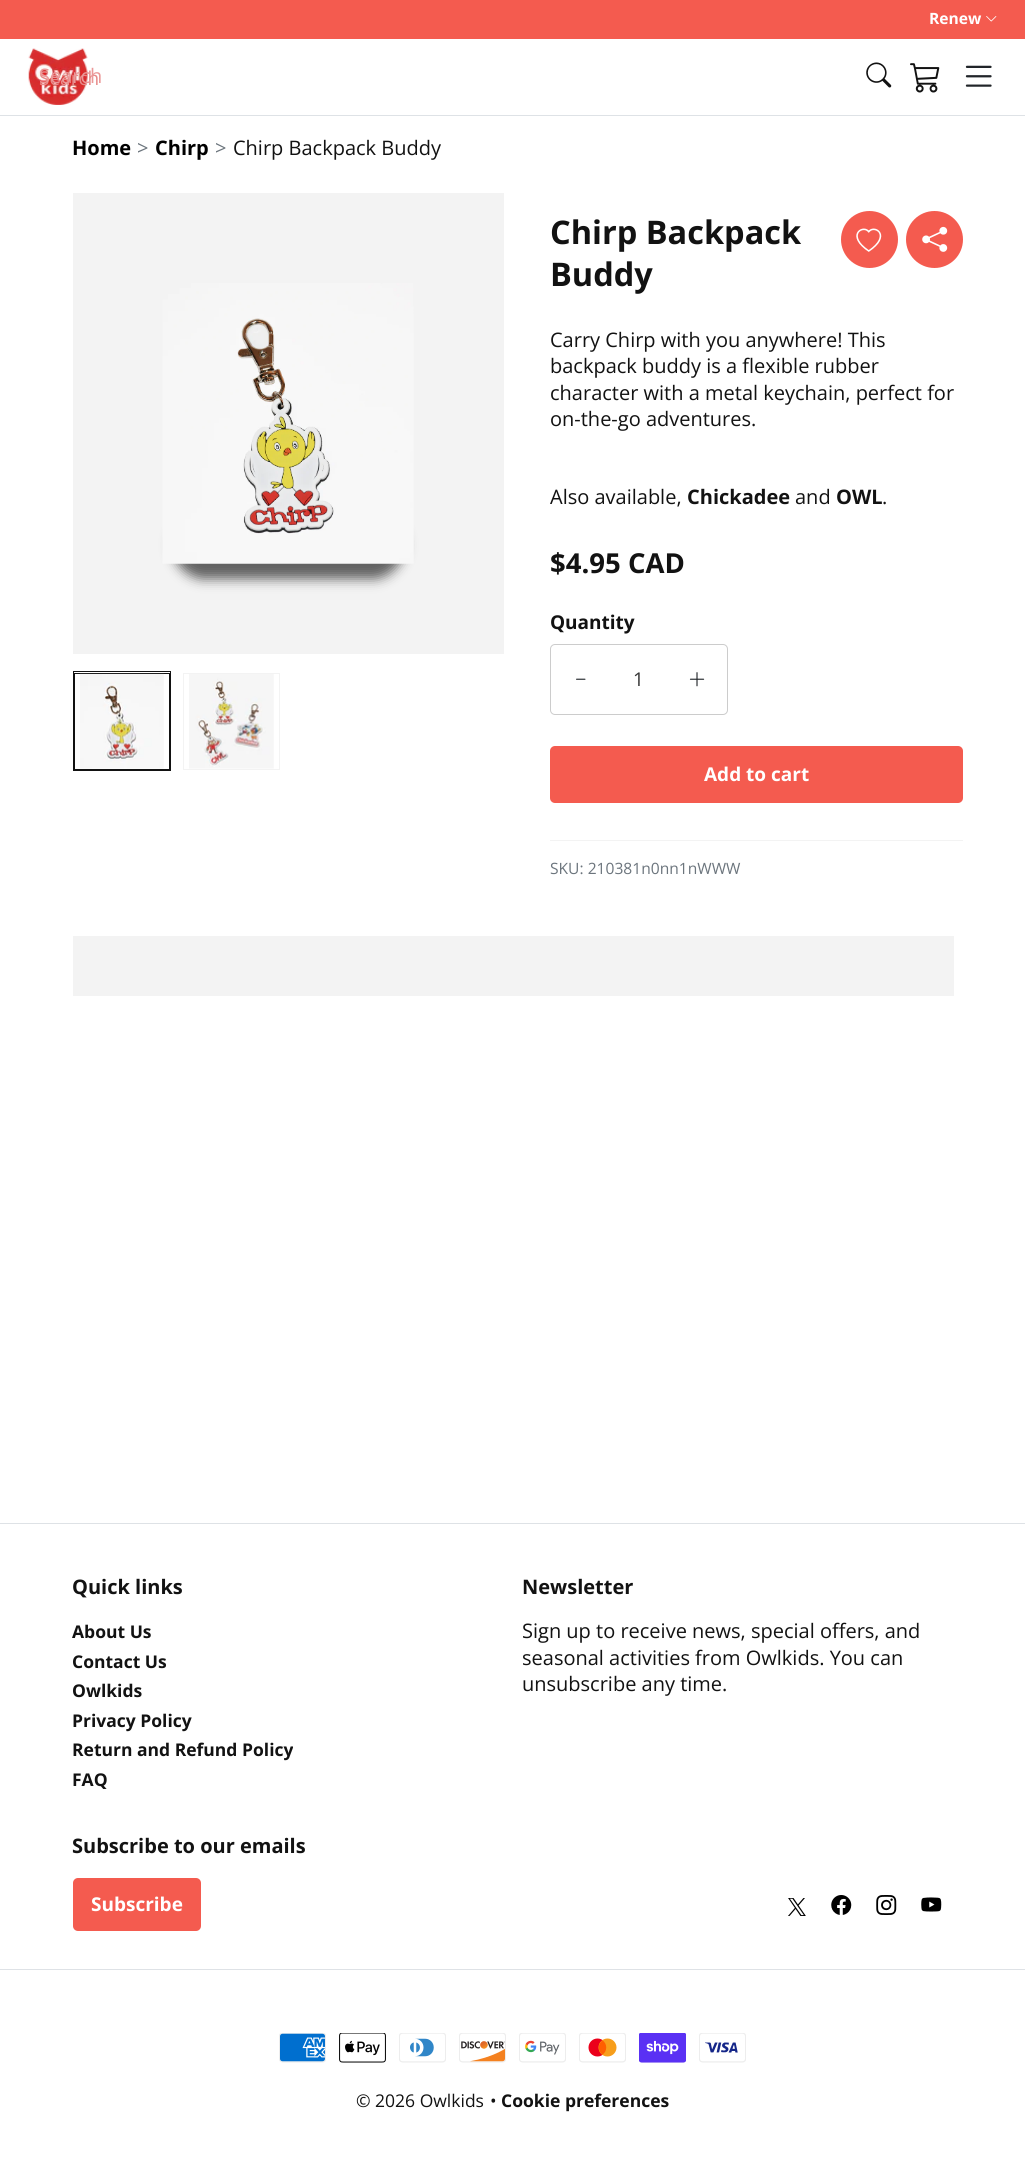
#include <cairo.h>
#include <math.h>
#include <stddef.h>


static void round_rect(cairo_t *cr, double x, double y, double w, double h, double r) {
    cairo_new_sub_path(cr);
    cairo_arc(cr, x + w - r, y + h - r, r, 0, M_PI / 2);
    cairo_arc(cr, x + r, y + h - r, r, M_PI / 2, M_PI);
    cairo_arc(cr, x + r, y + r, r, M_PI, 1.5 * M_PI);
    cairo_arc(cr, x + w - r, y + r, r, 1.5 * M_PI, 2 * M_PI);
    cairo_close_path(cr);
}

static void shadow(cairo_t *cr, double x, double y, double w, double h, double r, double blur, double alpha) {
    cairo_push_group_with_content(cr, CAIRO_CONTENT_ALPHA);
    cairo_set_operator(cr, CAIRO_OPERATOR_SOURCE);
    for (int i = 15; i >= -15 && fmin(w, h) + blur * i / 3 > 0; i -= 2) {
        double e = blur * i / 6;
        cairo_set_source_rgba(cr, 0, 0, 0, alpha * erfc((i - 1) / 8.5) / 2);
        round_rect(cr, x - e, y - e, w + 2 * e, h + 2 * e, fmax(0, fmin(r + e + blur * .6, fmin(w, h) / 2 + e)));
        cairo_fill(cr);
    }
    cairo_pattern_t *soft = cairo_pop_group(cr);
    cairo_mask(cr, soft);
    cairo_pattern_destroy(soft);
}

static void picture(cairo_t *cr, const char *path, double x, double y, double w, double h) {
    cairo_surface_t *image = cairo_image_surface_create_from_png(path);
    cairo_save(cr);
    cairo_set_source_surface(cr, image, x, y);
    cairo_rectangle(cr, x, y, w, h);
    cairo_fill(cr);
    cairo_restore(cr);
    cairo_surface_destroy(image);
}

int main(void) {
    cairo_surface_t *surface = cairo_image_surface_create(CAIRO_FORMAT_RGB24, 1025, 2163);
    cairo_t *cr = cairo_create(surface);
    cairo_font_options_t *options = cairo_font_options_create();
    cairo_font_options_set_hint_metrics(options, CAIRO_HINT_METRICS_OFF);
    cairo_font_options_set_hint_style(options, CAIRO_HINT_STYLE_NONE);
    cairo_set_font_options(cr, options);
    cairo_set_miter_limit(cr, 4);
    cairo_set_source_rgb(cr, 1, 1, 1);
    cairo_paint(cr);
    cairo_set_source_rgb(cr, 0.957, 0.357, 0.31);
    cairo_rectangle(cr, 0, 0, 1025, 39);
    cairo_fill(cr);
    cairo_select_font_face(cr, "Open Sans", CAIRO_FONT_SLANT_NORMAL, CAIRO_FONT_WEIGHT_BOLD);
    cairo_set_font_size(cr, 15.6);
    cairo_set_source_rgb(cr, 1, 1, 1);
    cairo_move_to(cr, 929, 24);
    cairo_show_text(cr, "Renew");
    picture(cr, "img1.png", 986, 16, 11, 6);
    cairo_set_source_rgb(cr, 0.871, 0.886, 0.902);
    cairo_rectangle(cr, 0, 115, 1025, 1);
    cairo_fill(cr);
    picture(cr, "img2.png", 28, 48, 60, 57);
    picture(cr, "img3.png", 965, 65, 27, 22);
    cairo_select_font_face(cr, "Open Sans", CAIRO_FONT_SLANT_NORMAL, CAIRO_FONT_WEIGHT_NORMAL);
    cairo_set_font_size(cr, 19);
    cairo_set_source_rgb(cr, 0.906, 0.545, 0.541);
    cairo_move_to(cr, 39, 85);
    cairo_show_text(cr, "Search");
    cairo_set_font_size(cr, 20);
    cairo_set_source_rgb(cr, 0.918, 0.596, 0.596);
    cairo_move_to(cr, 39, 83);
    cairo_show_text(cr, "Search");
    picture(cr, "img4.png", 866, 62, 26, 26);
    picture(cr, "img5.png", 910, 63, 30, 30);
    cairo_select_font_face(cr, "Open Sans", CAIRO_FONT_SLANT_NORMAL, CAIRO_FONT_WEIGHT_BOLD);
    cairo_set_source_rgb(cr, 0, 0, 0);
    cairo_move_to(cr, 72, 155);
    cairo_show_text(cr, "Home");
    cairo_select_font_face(cr, "Open Sans", CAIRO_FONT_SLANT_NORMAL, CAIRO_FONT_WEIGHT_NORMAL);
    cairo_set_source_rgb(cr, 0.424, 0.459, 0.49);
    cairo_move_to(cr, 137, 155);
    cairo_show_text(cr, ">");
    cairo_select_font_face(cr, "Open Sans", CAIRO_FONT_SLANT_NORMAL, CAIRO_FONT_WEIGHT_BOLD);
    cairo_set_source_rgb(cr, 0, 0, 0);
    cairo_move_to(cr, 155, 155);
    cairo_show_text(cr, "Chirp");
    cairo_select_font_face(cr, "Open Sans", CAIRO_FONT_SLANT_NORMAL, CAIRO_FONT_WEIGHT_NORMAL);
    cairo_set_source_rgb(cr, 0.424, 0.459, 0.49);
    cairo_move_to(cr, 215, 155);
    cairo_show_text(cr, ">");
    cairo_set_source_rgb(cr, 0.071, 0.071, 0.071);
    cairo_move_to(cr, 233, 155);
    cairo_show_text(cr, "Chirp Backpack Buddy");
    cairo_set_source_rgb(cr, 0.953, 0.953, 0.953);
    cairo_rectangle(cr, 73, 193, 431, 461);
    cairo_fill(cr);
    cairo_set_source_rgb(cr, 0, 0, 0);
    shadow(cr, 173, 511, 231, 68, 34, 6, 0.6);
    picture(cr, "img6.png", 162, 283, 252, 281);
    cairo_rectangle(cr, 73.5, 671.5, 97, 99);
    cairo_set_source_rgb(cr, 0.071, 0.071, 0.071);
    cairo_set_line_width(cr, 1);
    cairo_stroke(cr);
    cairo_rectangle(cr, 74.5, 673.5, 95, 96);
    cairo_stroke(cr);
    picture(cr, "img7.png", 80, 673, 84, 96);
    cairo_rectangle(cr, 183.5, 673.5, 96, 96);
    cairo_set_source_rgb(cr, 0.953, 0.953, 0.953);
    cairo_stroke(cr);
    picture(cr, "img8.png", 189, 674, 85, 95);
    cairo_select_font_face(cr, "Open Sans", CAIRO_FONT_SLANT_NORMAL, CAIRO_FONT_WEIGHT_BOLD);
    cairo_set_font_size(cr, 32.5);
    cairo_set_source_rgb(cr, 0.071, 0.071, 0.071);
    cairo_move_to(cr, 550, 244);
    cairo_show_text(cr, "Chirp Backpack");
    cairo_move_to(cr, 550, 286);
    cairo_show_text(cr, "Buddy");
    cairo_set_source_rgb(cr, 0.957, 0.357, 0.31);
    cairo_new_path(cr);
    cairo_arc(cr, 869.5, 239.5, 28.5, 0, 2 * M_PI);
    cairo_fill(cr);
    picture(cr, "img9.png", 856, 228, 26, 24);
    cairo_arc(cr, 934.5, 239.5, 28.5, 0, 2 * M_PI);
    cairo_fill(cr);
    picture(cr, "img10.png", 922, 226, 26, 26);
    cairo_select_font_face(cr, "Open Sans", CAIRO_FONT_SLANT_NORMAL, CAIRO_FONT_WEIGHT_NORMAL);
    cairo_set_font_size(cr, 20);
    cairo_set_source_rgb(cr, 0.071, 0.071, 0.071);
    cairo_move_to(cr, 550, 347);
    cairo_show_text(cr, "Carry Chirp with you anywhere! This");
    cairo_move_to(cr, 550, 373);
    cairo_show_text(cr, "backpack buddy is a flexible rubber");
    cairo_move_to(cr, 550, 400);
    cairo_show_text(cr, "character with a metal keychain, perfect for");
    cairo_move_to(cr, 550, 426);
    cairo_show_text(cr, "on-the-go adventures.");
    cairo_move_to(cr, 550, 504);
    cairo_show_text(cr, "Also available,");
    cairo_select_font_face(cr, "Open Sans", CAIRO_FONT_SLANT_NORMAL, CAIRO_FONT_WEIGHT_BOLD);
    cairo_move_to(cr, 687, 504);
    cairo_show_text(cr, "Chickadee");
    cairo_select_font_face(cr, "Open Sans", CAIRO_FONT_SLANT_NORMAL, CAIRO_FONT_WEIGHT_NORMAL);
    cairo_move_to(cr, 795, 504);
    cairo_show_text(cr, "and");
    cairo_select_font_face(cr, "Open Sans", CAIRO_FONT_SLANT_NORMAL, CAIRO_FONT_WEIGHT_BOLD);
    cairo_move_to(cr, 836, 504);
    cairo_show_text(cr, "OWL");
    cairo_select_font_face(cr, "Open Sans", CAIRO_FONT_SLANT_NORMAL, CAIRO_FONT_WEIGHT_NORMAL);
    cairo_move_to(cr, 882, 504);
    cairo_show_text(cr, ".");
    cairo_select_font_face(cr, "Open Sans", CAIRO_FONT_SLANT_NORMAL, CAIRO_FONT_WEIGHT_BOLD);
    cairo_set_font_size(cr, 27.5);
    cairo_move_to(cr, 550, 573);
    cairo_show_text(cr, "$4.95 CAD");
    cairo_set_font_size(cr, 19);
    cairo_move_to(cr, 550, 629);
    cairo_show_text(cr, "Quantity");
    round_rect(cr, 550.5, 644.5, 177, 70, 4.5);
    cairo_set_source_rgb(cr, 0.8, 0.8, 0.8);
    cairo_stroke(cr);
    picture(cr, "img11.png", 576, 678, 10, 2);
    cairo_select_font_face(cr, "Open Sans", CAIRO_FONT_SLANT_NORMAL, CAIRO_FONT_WEIGHT_NORMAL);
    cairo_set_source_rgb(cr, 0.212, 0.212, 0.212);
    cairo_move_to(cr, 633, 686);
    cairo_show_text(cr, "1");
    picture(cr, "img12.png", 689, 672, 16, 15);
    cairo_set_source_rgb(cr, 0.957, 0.357, 0.31);
    round_rect(cr, 550, 746, 413, 57, 5);
    cairo_fill(cr);
    cairo_select_font_face(cr, "Open Sans", CAIRO_FONT_SLANT_NORMAL, CAIRO_FONT_WEIGHT_BOLD);
    cairo_set_source_rgb(cr, 1, 1, 1);
    cairo_move_to(cr, 704, 781);
    cairo_show_text(cr, "Add to cart");
    cairo_set_source_rgb(cr, 0.953, 0.953, 0.953);
    cairo_rectangle(cr, 550, 840, 413, 1);
    cairo_fill(cr);
    cairo_select_font_face(cr, "Open Sans", CAIRO_FONT_SLANT_NORMAL, CAIRO_FONT_WEIGHT_NORMAL);
    cairo_set_font_size(cr, 15.6);
    cairo_set_source_rgb(cr, 0.424, 0.459, 0.49);
    cairo_move_to(cr, 550, 874);
    cairo_show_text(cr, "SKU: 210381n0nn1nWWW");
    cairo_set_source_rgb(cr, 0.953, 0.953, 0.953);
    cairo_rectangle(cr, 73, 936, 881, 60);
    cairo_fill(cr);
    cairo_set_source_rgb(cr, 0.871, 0.886, 0.902);
    cairo_rectangle(cr, 0, 1523, 1025, 1);
    cairo_fill(cr);
    cairo_select_font_face(cr, "Open Sans", CAIRO_FONT_SLANT_NORMAL, CAIRO_FONT_WEIGHT_BOLD);
    cairo_set_font_size(cr, 20);
    cairo_set_source_rgb(cr, 0.071, 0.071, 0.071);
    cairo_move_to(cr, 72, 1594);
    cairo_show_text(cr, "Quick links");
    cairo_set_font_size(cr, 17.5);
    cairo_move_to(cr, 72, 1638);
    cairo_show_text(cr, "About Us");
    cairo_move_to(cr, 72, 1668);
    cairo_show_text(cr, "Contact Us");
    cairo_move_to(cr, 72, 1697);
    cairo_show_text(cr, "Owlkids");
    cairo_move_to(cr, 72, 1727);
    cairo_show_text(cr, "Privacy Policy");
    cairo_move_to(cr, 72, 1756);
    cairo_show_text(cr, "Return and Refund Policy");
    cairo_move_to(cr, 72, 1786);
    cairo_show_text(cr, "FAQ");
    cairo_set_font_size(cr, 20);
    cairo_move_to(cr, 522, 1594);
    cairo_show_text(cr, "Newsletter");
    cairo_select_font_face(cr, "Open Sans", CAIRO_FONT_SLANT_NORMAL, CAIRO_FONT_WEIGHT_NORMAL);
    cairo_move_to(cr, 522, 1638);
    cairo_show_text(cr, "Sign up to receive news, special offers, and");
    cairo_move_to(cr, 522, 1665);
    cairo_show_text(cr, "seasonal activities from Owlkids. You can");
    cairo_move_to(cr, 522, 1691);
    cairo_show_text(cr, "unsubscribe any time.");
    cairo_select_font_face(cr, "Open Sans", CAIRO_FONT_SLANT_NORMAL, CAIRO_FONT_WEIGHT_BOLD);
    cairo_move_to(cr, 72, 1853);
    cairo_show_text(cr, "Subscribe to our emails");
    cairo_set_source_rgb(cr, 0.957, 0.357, 0.31);
    round_rect(cr, 73, 1878, 128, 53, 5);
    cairo_fill(cr);
    cairo_set_font_size(cr, 19);
    cairo_set_source_rgb(cr, 1, 1, 1);
    cairo_move_to(cr, 91, 1911);
    cairo_show_text(cr, "Subscribe");
    picture(cr, "img13.png", 788, 1898, 18, 18);
    picture(cr, "img14.png", 831, 1895, 21, 20);
    picture(cr, "img15.png", 876, 1895, 21, 20);
    picture(cr, "img16.png", 921, 1897, 21, 15);
    cairo_set_source_rgb(cr, 0.871, 0.886, 0.902);
    cairo_rectangle(cr, 0, 1969, 1025, 1);
    cairo_fill(cr);
    picture(cr, "img17.png", 279, 2033, 47, 30);
    picture(cr, "img18.png", 339, 2033, 47, 30);
    picture(cr, "img19.png", 399, 2033, 47, 30);
    picture(cr, "img20.png", 459, 2033, 47, 30);
    picture(cr, "img21.png", 519, 2033, 47, 30);
    picture(cr, "img22.png", 579, 2033, 47, 30);
    picture(cr, "img23.png", 639, 2033, 47, 30);
    picture(cr, "img24.png", 699, 2033, 47, 30);
    cairo_select_font_face(cr, "Open Sans", CAIRO_FONT_SLANT_NORMAL, CAIRO_FONT_WEIGHT_NORMAL);
    cairo_set_font_size(cr, 17.5);
    cairo_set_source_rgb(cr, 0.071, 0.071, 0.071);
    cairo_move_to(cr, 356, 2107);
    cairo_show_text(cr, "© 2026 Owlkids");
    cairo_move_to(cr, 490, 2107);
    cairo_show_text(cr, "•");
    cairo_select_font_face(cr, "Open Sans", CAIRO_FONT_SLANT_NORMAL, CAIRO_FONT_WEIGHT_BOLD);
    cairo_move_to(cr, 501, 2107);
    cairo_show_text(cr, "Cookie preferences");
    cairo_surface_write_to_png(surface, "page.png");
    cairo_font_options_destroy(options);
    cairo_destroy(cr);
    cairo_surface_destroy(surface);
    return 0;
}
